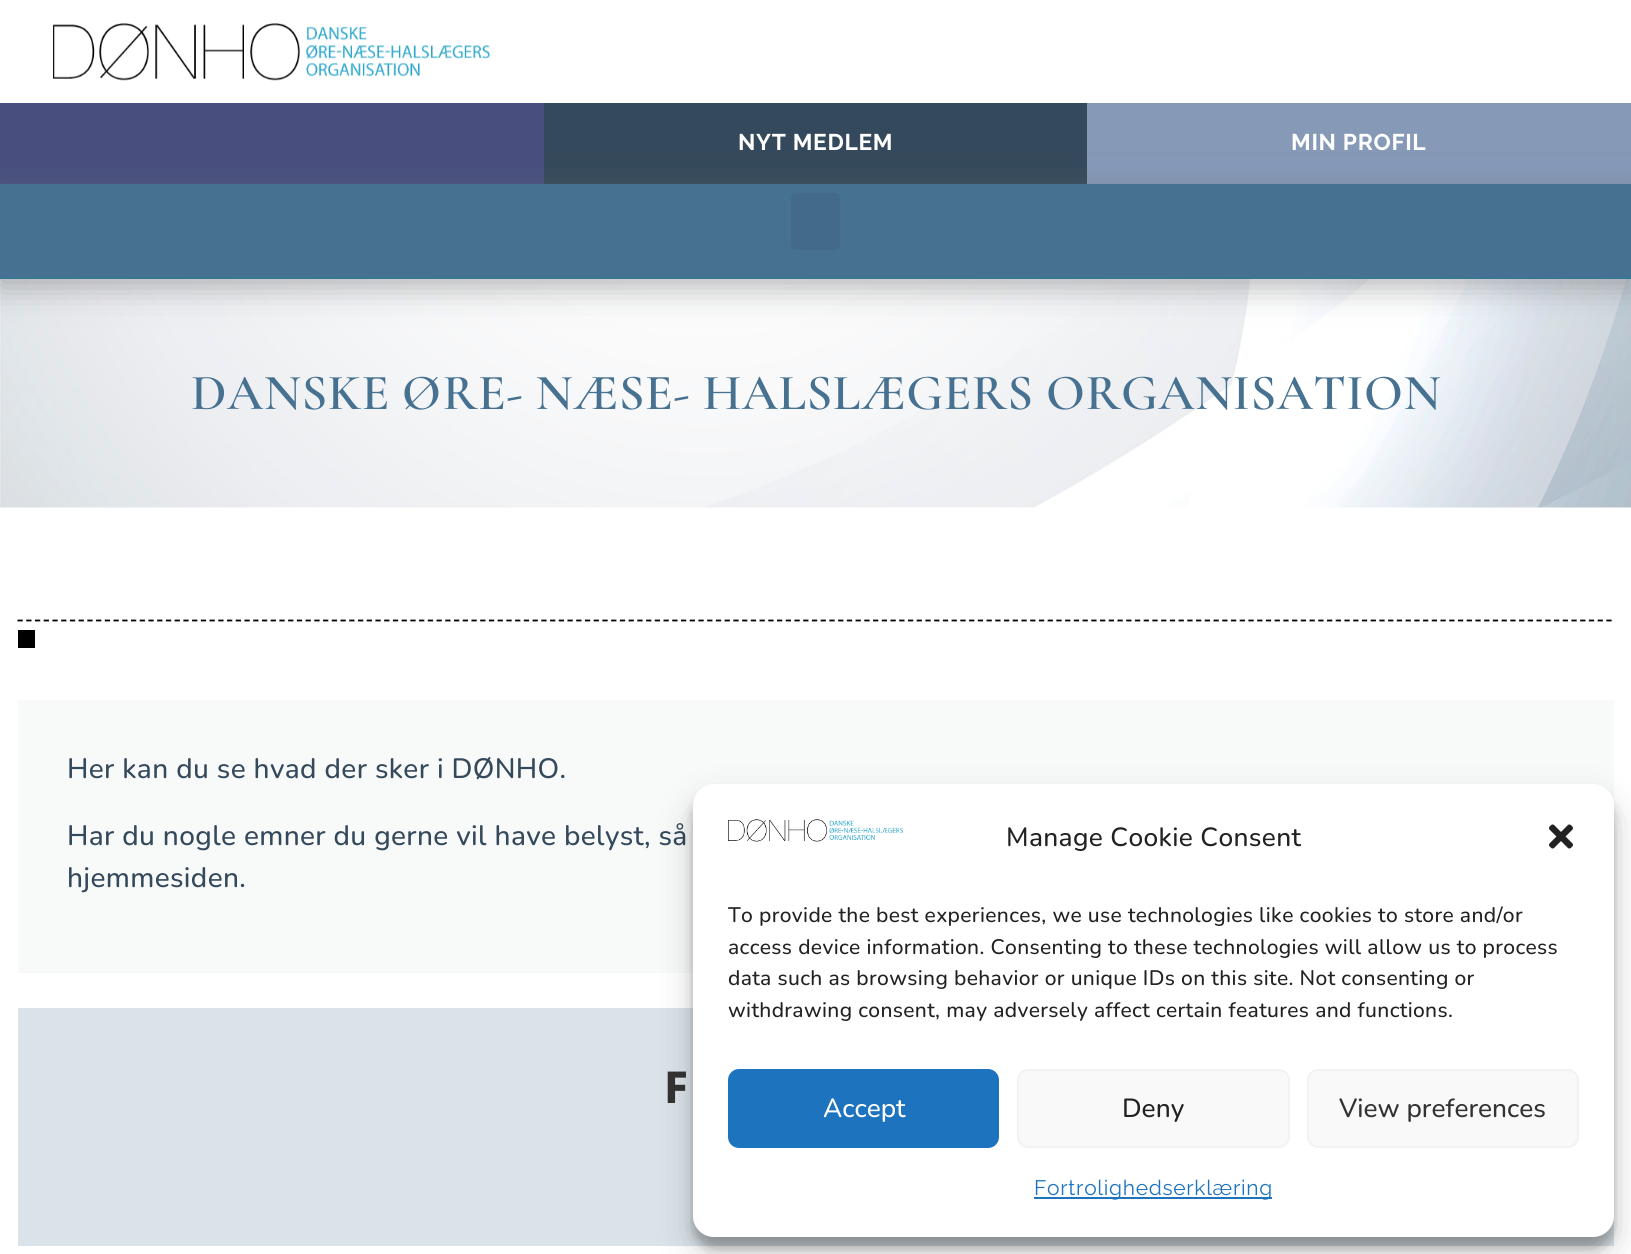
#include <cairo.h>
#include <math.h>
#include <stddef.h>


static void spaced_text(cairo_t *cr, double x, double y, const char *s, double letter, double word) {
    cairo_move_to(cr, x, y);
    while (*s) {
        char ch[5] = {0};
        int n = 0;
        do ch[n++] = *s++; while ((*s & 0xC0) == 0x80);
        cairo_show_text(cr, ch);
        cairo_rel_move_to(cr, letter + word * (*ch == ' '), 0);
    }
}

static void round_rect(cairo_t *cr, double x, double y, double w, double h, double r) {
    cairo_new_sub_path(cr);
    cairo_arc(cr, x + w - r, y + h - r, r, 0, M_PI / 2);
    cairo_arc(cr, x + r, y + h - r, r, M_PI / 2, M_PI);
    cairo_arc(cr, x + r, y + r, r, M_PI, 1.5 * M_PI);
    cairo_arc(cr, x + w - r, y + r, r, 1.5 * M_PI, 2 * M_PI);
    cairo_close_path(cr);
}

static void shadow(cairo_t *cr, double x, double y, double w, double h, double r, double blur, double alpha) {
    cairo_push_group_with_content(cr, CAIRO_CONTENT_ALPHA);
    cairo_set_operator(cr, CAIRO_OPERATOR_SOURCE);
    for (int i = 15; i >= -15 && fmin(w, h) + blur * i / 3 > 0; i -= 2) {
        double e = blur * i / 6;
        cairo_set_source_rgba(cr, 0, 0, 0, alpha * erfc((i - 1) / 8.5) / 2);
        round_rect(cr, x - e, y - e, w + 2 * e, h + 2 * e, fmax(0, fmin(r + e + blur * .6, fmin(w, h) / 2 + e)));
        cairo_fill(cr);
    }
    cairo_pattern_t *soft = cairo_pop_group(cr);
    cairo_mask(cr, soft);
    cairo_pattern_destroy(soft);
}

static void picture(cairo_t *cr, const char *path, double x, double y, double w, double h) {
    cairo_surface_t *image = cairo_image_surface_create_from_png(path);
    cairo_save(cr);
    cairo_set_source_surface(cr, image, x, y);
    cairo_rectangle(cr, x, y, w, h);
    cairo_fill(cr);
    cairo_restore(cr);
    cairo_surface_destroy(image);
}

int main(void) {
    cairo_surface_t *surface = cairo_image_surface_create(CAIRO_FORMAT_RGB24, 1631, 1254);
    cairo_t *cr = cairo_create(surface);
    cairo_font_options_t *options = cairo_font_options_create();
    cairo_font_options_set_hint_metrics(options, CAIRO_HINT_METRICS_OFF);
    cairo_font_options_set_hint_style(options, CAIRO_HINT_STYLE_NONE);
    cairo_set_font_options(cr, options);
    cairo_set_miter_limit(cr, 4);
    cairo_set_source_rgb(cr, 1, 1, 1);
    cairo_paint(cr);
    picture(cr, "img1.png", 53, 23, 437, 58);
    cairo_set_source_rgb(cr, 0.282, 0.31, 0.494);
    cairo_rectangle(cr, 0, 103, 544, 81);
    cairo_fill(cr);
    cairo_set_source_rgb(cr, 0.204, 0.286, 0.357);
    cairo_rectangle(cr, 544, 103, 543, 81);
    cairo_fill(cr);
    cairo_select_font_face(cr, "Raleway", CAIRO_FONT_SLANT_NORMAL, CAIRO_FONT_WEIGHT_BOLD);
    cairo_set_font_size(cr, 22.75);
    cairo_set_source_rgb(cr, 1, 1, 1);
    spaced_text(cr, 738, 150, "NYT MEDLEM", 0.7, 0);
    cairo_set_source_rgb(cr, 0.525, 0.604, 0.722);
    cairo_rectangle(cr, 1087, 103, 544, 81);
    cairo_fill(cr);
    cairo_set_source_rgb(cr, 1, 1, 1);
    spaced_text(cr, 1291, 150, "MIN PROFIL", 0.7, 0);
    cairo_set_source_rgb(cr, 0.278, 0.443, 0.565);
    cairo_rectangle(cr, 0, 184, 1631, 93);
    cairo_fill(cr);
    cairo_set_source_rgb(cr, 0.102, 0.498, 0.659);
    cairo_rectangle(cr, 0, 277, 1631, 2);
    cairo_fill(cr);
    picture(cr, "img2.png", 0, 279, 1631, 229);
    cairo_save(cr);
    cairo_set_fill_rule(cr, CAIRO_FILL_RULE_EVEN_ODD);
    cairo_new_path(cr);
    cairo_move_to(cr, 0, 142);
    cairo_line_to(cr, 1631, 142);
    cairo_line_to(cr, 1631, 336);
    cairo_line_to(cr, 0, 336);
    cairo_close_path(cr);
    cairo_move_to(cr, 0, 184);
    cairo_line_to(cr, 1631, 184);
    cairo_line_to(cr, 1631, 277);
    cairo_line_to(cr, 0, 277);
    cairo_close_path(cr);
    cairo_clip(cr);
    cairo_set_source_rgb(cr, 0.408, 0.416, 0.435);
    shadow(cr, -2, 191, 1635, 96, 0, 16, 0.5);
    cairo_restore(cr);
    cairo_set_source_rgb(cr, 0.263, 0.42, 0.537);
    round_rect(cr, 791, 193, 49, 57, 5);
    cairo_fill(cr);
    cairo_select_font_face(cr, "Cormorant Garamond SemiBold", CAIRO_FONT_SLANT_NORMAL, CAIRO_FONT_WEIGHT_NORMAL);
    cairo_set_font_size(cr, 50.75);
    cairo_set_source_rgb(cr, 0.278, 0.443, 0.565);
    spaced_text(cr, 191, 409, "DANSKE ØRE- NÆSE- HALSLÆGERS ORGANISATION", 0.55, 0);
    cairo_new_path(cr);
    cairo_move_to(cr, 17.5, 620.5);
    cairo_line_to(cr, 1613.5, 620.5);
    cairo_set_source_rgb(cr, 0, 0, 0);
    cairo_set_line_width(cr, 1.8);
    cairo_set_dash(cr, (double[]){5.25, 3.48}, 2, 0);
    cairo_stroke(cr);
    cairo_rectangle(cr, 18, 630, 17, 18);
    cairo_fill(cr);
    cairo_set_source_rgb(cr, 0.969, 0.973, 0.973);
    cairo_rectangle(cr, 18, 700, 1596, 273);
    cairo_fill(cr);
    cairo_select_font_face(cr, "Nunito Medium", CAIRO_FONT_SLANT_NORMAL, CAIRO_FONT_WEIGHT_NORMAL);
    cairo_set_font_size(cr, 28);
    cairo_set_source_rgb(cr, 0.204, 0.286, 0.357);
    spaced_text(cr, 67, 778, "Her kan du se hvad der sker i DØNHO.", 0.35, 0);
    spaced_text(cr, 67, 845, "Har du nogle emner du gerne vil have belyst, så", 0.35, 0);
    spaced_text(cr, 67, 887, "hjemmesiden.", 0.35, 0);
    cairo_set_source_rgb(cr, 0.855, 0.89, 0.914);
    cairo_rectangle(cr, 18, 1008, 675, 100);
    cairo_fill(cr);
    cairo_select_font_face(cr, "Noto Sans ExtraBold", CAIRO_FONT_SLANT_NORMAL, CAIRO_FONT_WEIGHT_NORMAL);
    cairo_set_font_size(cr, 44);
    cairo_set_source_rgb(cr, 0.2, 0.2, 0.2);
    spaced_text(cr, 664, 1103, "F", 0.55, 0);
    cairo_set_source_rgb(cr, 0.855, 0.89, 0.914);
    cairo_rectangle(cr, 18, 1108, 1596, 138);
    cairo_fill(cr);
    cairo_set_source_rgb(cr, 0, 0, 0);
    shadow(cr, 693, 795, 921, 453, 21, 5, 0.23);
    shadow(cr, 693, 802, 921, 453, 21, 17.5, 0.19);
    cairo_set_source_rgb(cr, 1, 1, 1);
    round_rect(cr, 693, 784, 921, 453, 21);
    cairo_fill(cr);
    picture(cr, "img3.png", 728, 819, 175, 23);
    cairo_select_font_face(cr, "Nunito Medium", CAIRO_FONT_SLANT_NORMAL, CAIRO_FONT_WEIGHT_NORMAL);
    cairo_set_font_size(cr, 26.25);
    cairo_set_source_rgb(cr, 0.133, 0.133, 0.133);
    spaced_text(cr, 1006, 846, "Manage Cookie Consent", 0.35, 0);
    picture(cr, "img4.png", 1549, 824, 24, 25);
    cairo_set_font_size(cr, 21);
    spaced_text(cr, 728, 922, "To provide the best experiences, we use technologies like cookies to store and/or", 0.35, 0);
    spaced_text(cr, 728, 954, "access device information. Consenting to these technologies will allow us to process", 0.35, 0);
    spaced_text(cr, 728, 985, "data such as browsing behavior or unique IDs on this site. Not consenting or", 0.35, 0);
    spaced_text(cr, 728, 1017, "withdrawing consent, may adversely affect certain features and functions.", 0.35, 0);
    cairo_set_source_rgb(cr, 0.118, 0.451, 0.745);
    round_rect(cr, 729, 1070, 269, 77, 10);
    cairo_fill_preserve(cr);
    cairo_set_line_width(cr, 2);
    cairo_set_dash(cr, NULL, 0, 0);
    cairo_stroke(cr);
    cairo_set_font_size(cr, 26.25);
    cairo_set_source_rgb(cr, 1, 1, 1);
    cairo_move_to(cr, 823, 1117);
    cairo_show_text(cr, "Accept");
    cairo_set_source_rgb(cr, 0.976, 0.976, 0.976);
    round_rect(cr, 1018, 1070, 271, 77, 10);
    cairo_fill_preserve(cr);
    cairo_set_source_rgb(cr, 0.949, 0.949, 0.949);
    cairo_stroke(cr);
    cairo_set_source_rgb(cr, 0.133, 0.133, 0.133);
    cairo_move_to(cr, 1122, 1117);
    cairo_show_text(cr, "Deny");
    cairo_set_source_rgb(cr, 0.976, 0.976, 0.976);
    round_rect(cr, 1308, 1070, 270, 77, 10);
    cairo_fill_preserve(cr);
    cairo_set_source_rgb(cr, 0.949, 0.949, 0.949);
    cairo_stroke(cr);
    cairo_set_source_rgb(cr, 0.2, 0.2, 0.2);
    cairo_move_to(cr, 1339, 1117);
    cairo_show_text(cr, "View preferences");
    cairo_set_source_rgb(cr, 0.118, 0.451, 0.745);
    cairo_rectangle(cr, 1034, 1197, 238, 2);
    cairo_fill(cr);
    cairo_select_font_face(cr, "Raleway", CAIRO_FONT_SLANT_NORMAL, CAIRO_FONT_WEIGHT_NORMAL);
    cairo_set_font_size(cr, 21);
    spaced_text(cr, 1034, 1195, "Fortrolighedserklæring", 0.7, 0);
    cairo_surface_write_to_png(surface, "page.png");
    cairo_font_options_destroy(options);
    cairo_destroy(cr);
    cairo_surface_destroy(surface);
    return 0;
}
